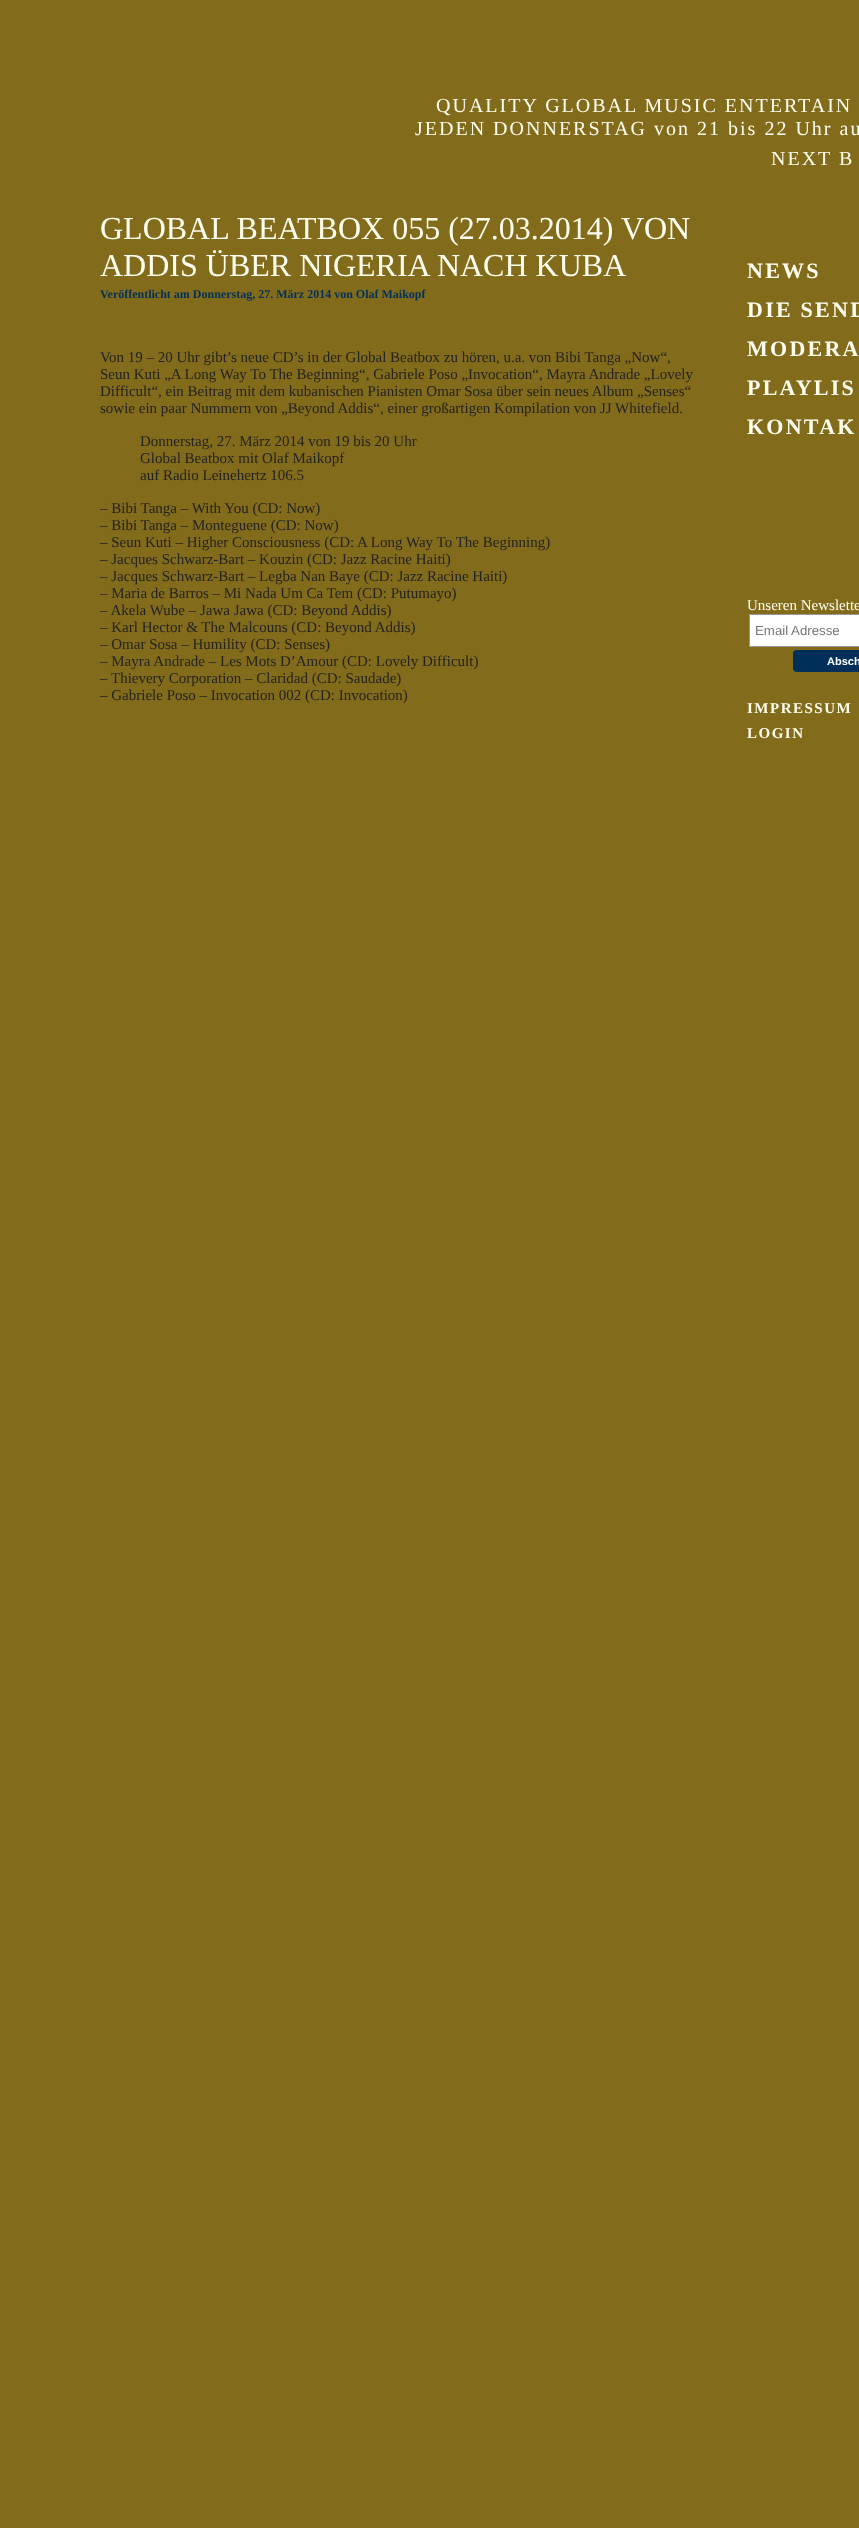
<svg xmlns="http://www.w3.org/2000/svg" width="859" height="2528">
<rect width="100%" height="100%" fill="#836b1c"/>
<text x="436" y="112" style="font-family:Liberation Serif;font-size:20px;letter-spacing:2px;fill:#fffeef">QUALITY GLOBAL MUSIC ENTERTAIN</text>
<text x="415" y="135" style="font-family:Liberation Serif;font-size:20px;letter-spacing:2px;fill:#fffeef">JEDEN DONNERSTAG von 21 bis 22 Uhr au</text>
<text x="771" y="165" style="font-family:Liberation Serif;font-size:20px;letter-spacing:2px;fill:#fffeef">NEXT B</text>
<text x="100" y="239" style="font-family:Liberation Serif;font-size:32px;fill:#fffeef">GLOBAL BEATBOX 055 (27.03.2014) VON</text>
<text x="100" y="276" style="font-family:Liberation Serif;font-size:32px;fill:#fffeef">ADDIS ÜBER NIGERIA NACH KUBA</text>
<text x="100" y="298" style="font-family:Liberation Serif;font-size:12px;font-weight:bold;fill:#00305a">Veröffentlicht am Donnerstag, 27. März 2014 von Olaf Maikopf</text>
<text x="100" y="362" style="font-family:Liberation Serif;font-size:15px;fill:#232323">Von 19 – 20 Uhr gibt’s neue CD’s in der Global Beatbox zu hören, u.a. von Bibi Tanga „Now“,</text>
<text x="100" y="379" style="font-family:Liberation Serif;font-size:15px;fill:#232323">Seun Kuti „A Long Way To The Beginning“, Gabriele Poso „Invocation“, Mayra Andrade „Lovely</text>
<text x="100" y="396" style="font-family:Liberation Serif;font-size:15px;fill:#232323">Difficult“, ein Beitrag mit dem kubanischen Pianisten Omar Sosa über sein neues Album „Senses“</text>
<text x="100" y="413" style="font-family:Liberation Serif;font-size:15px;fill:#232323">sowie ein paar Nummern von „Beyond Addis“, einer großartigen Kompilation von JJ Whitefield.</text>
<text x="140" y="446" style="font-family:Liberation Serif;font-size:15px;fill:#232323">Donnerstag, 27. März 2014 von 19 bis 20 Uhr</text>
<text x="140" y="463" style="font-family:Liberation Serif;font-size:15px;fill:#232323">Global Beatbox mit Olaf Maikopf</text>
<text x="140" y="480" style="font-family:Liberation Serif;font-size:15px;fill:#232323">auf Radio Leinehertz 106.5</text>
<text x="100" y="513" style="font-family:Liberation Serif;font-size:15px;fill:#232323">– Bibi Tanga – With You (CD: Now)</text>
<text x="100" y="530" style="font-family:Liberation Serif;font-size:15px;fill:#232323">– Bibi Tanga – Monteguene (CD: Now)</text>
<text x="100" y="547" style="font-family:Liberation Serif;font-size:15px;fill:#232323">– Seun Kuti – Higher Consciousness (CD: A Long Way To The Beginning)</text>
<text x="100" y="564" style="font-family:Liberation Serif;font-size:15px;fill:#232323">– Jacques Schwarz-Bart – Kouzin (CD: Jazz Racine Haiti)</text>
<text x="100" y="581" style="font-family:Liberation Serif;font-size:15px;fill:#232323">– Jacques Schwarz-Bart – Legba Nan Baye (CD: Jazz Racine Haiti)</text>
<text x="100" y="598" style="font-family:Liberation Serif;font-size:15px;fill:#232323">– Maria de Barros – Mi Nada Um Ca Tem (CD: Putumayo)</text>
<text x="100" y="615" style="font-family:Liberation Serif;font-size:15px;fill:#232323">– Akela Wube – Jawa Jawa (CD: Beyond Addis)</text>
<text x="100" y="632" style="font-family:Liberation Serif;font-size:15px;fill:#232323">– Karl Hector &amp; The Malcouns (CD: Beyond Addis)</text>
<text x="100" y="649" style="font-family:Liberation Serif;font-size:15px;fill:#232323">– Omar Sosa – Humility (CD: Senses)</text>
<text x="100" y="666" style="font-family:Liberation Serif;font-size:15px;fill:#232323">– Mayra Andrade – Les Mots D’Amour (CD: Lovely Difficult)</text>
<text x="100" y="683" style="font-family:Liberation Serif;font-size:15px;fill:#232323">– Thievery Corporation – Claridad (CD: Saudade)</text>
<text x="100" y="700" style="font-family:Liberation Serif;font-size:15px;fill:#232323">– Gabriele Poso – Invocation 002 (CD: Invocation)</text>
<text x="747" y="278" style="font-family:Liberation Serif;font-size:22px;font-weight:bold;letter-spacing:2.25px;fill:#fffeef">NEWS</text>
<text x="747" y="317" style="font-family:Liberation Serif;font-size:22px;font-weight:bold;letter-spacing:2.25px;fill:#fffeef">DIE SEND</text>
<text x="747" y="356" style="font-family:Liberation Serif;font-size:22px;font-weight:bold;letter-spacing:2.25px;fill:#fffeef">MODERA</text>
<text x="747" y="395" style="font-family:Liberation Serif;font-size:22px;font-weight:bold;letter-spacing:2.25px;fill:#fffeef">PLAYLIS</text>
<text x="747" y="434" style="font-family:Liberation Serif;font-size:22px;font-weight:bold;letter-spacing:2.25px;fill:#fffeef">KONTAK</text>
<text x="747" y="610" style="font-family:Liberation Serif;font-size:15px;fill:#fffeef">Unseren Newslette</text>
<rect x="749.5" y="614.5" width="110" height="32" fill="#fff" stroke="#999"/>
<text x="755" y="635" style="font-family:Liberation Sans;font-size:13.25px;fill:#757575">Email Adresse</text>
<rect x="793" y="650" width="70" height="22" rx="4" fill="#00305a"/>
<text x="827" y="665" style="font-family:Liberation Sans;font-size:11px;font-weight:bold;fill:#fff">Absch</text>
<text x="747" y="713" style="font-family:Liberation Serif;font-size:15px;font-weight:bold;letter-spacing:1.5px;fill:#fffeef">IMPRESSUM</text>
<text x="747" y="738" style="font-family:Liberation Serif;font-size:15px;font-weight:bold;letter-spacing:1.5px;fill:#fffeef">LOGIN</text>
</svg>
